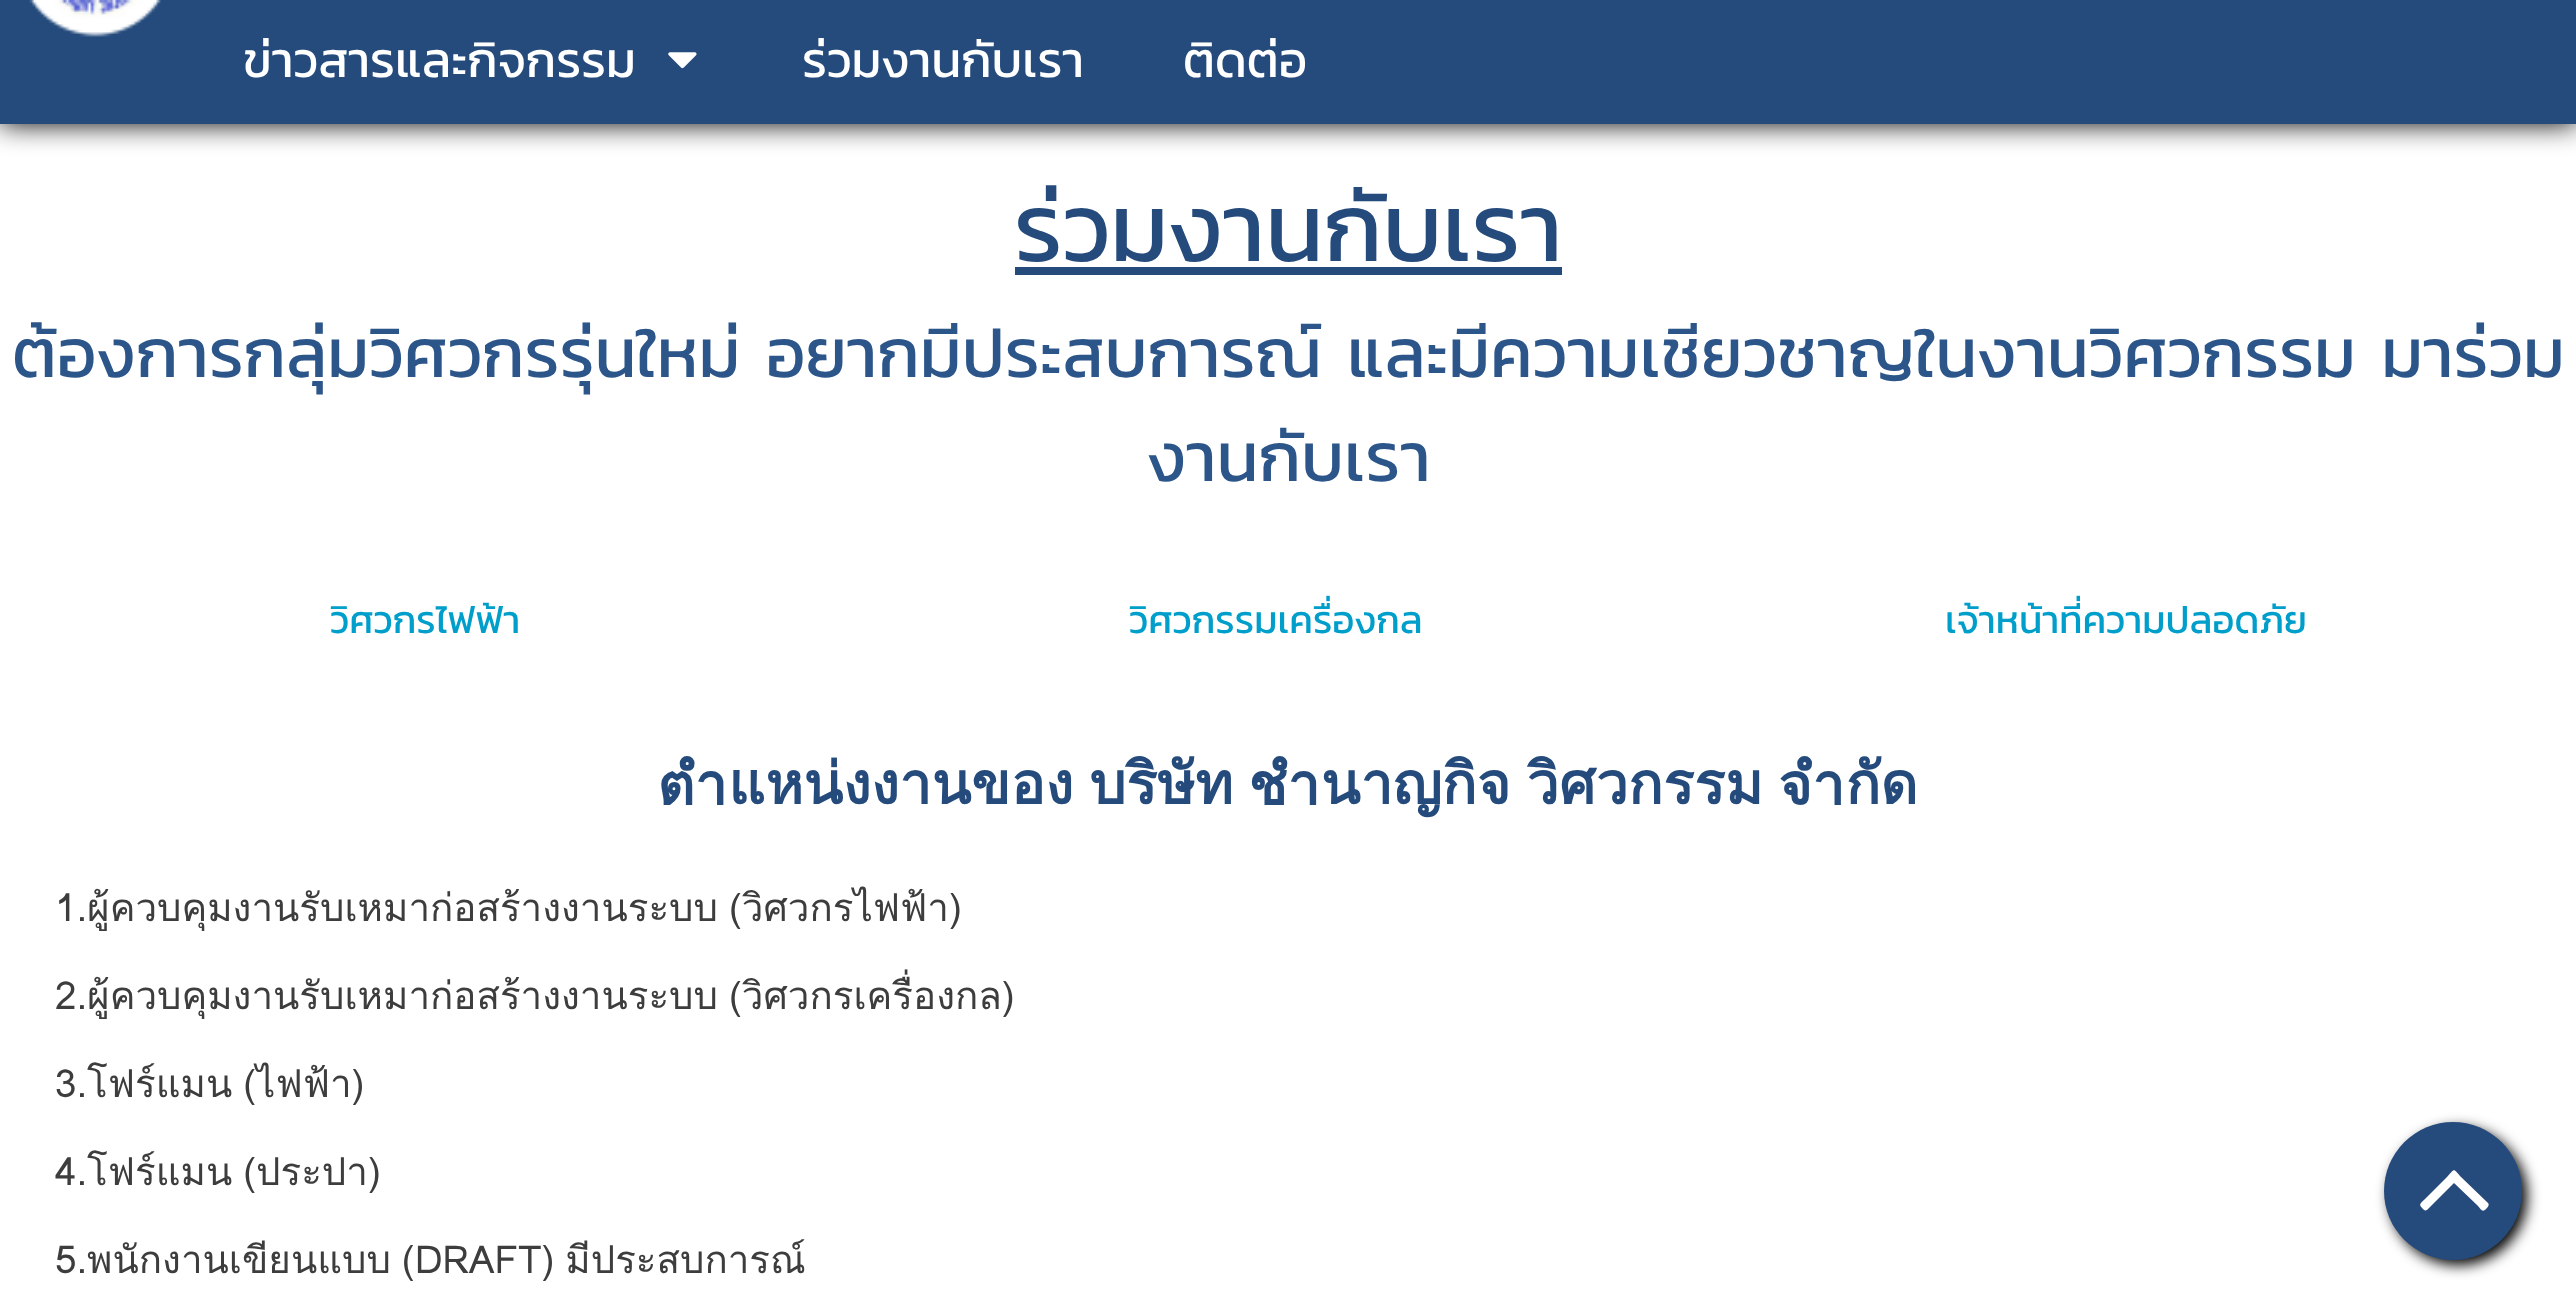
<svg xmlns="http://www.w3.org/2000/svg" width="2576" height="1313">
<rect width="100%" height="100%" fill="#fff"/>
<rect y="-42" width="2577" height="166" fill="#000" filter="blur(14px)"/>
<rect width="2576" height="124" fill="#254b7c"/>
<image x="29" y="0" width="132" height="37" href="media/1.png"/>
<text x="243" y="77" style="font-family:Kanit;font-size:49.5px;fill:#fff">ข่าวสารและกิจกรรม</text>
<image x="668" y="52" width="29" height="17" href="media/2.png"/>
<text x="802" y="77" style="font-family:Kanit;font-size:49.5px;fill:#fff">ร่วมงานกับเรา</text>
<text x="1183" y="77" style="font-family:Kanit;font-size:49.5px;fill:#fff">ติดต่อ</text>
<text x="1014" y="261" style="font-family:Kanit;font-size:96.25px;fill:#254b7c">ร่วมงานกับเรา</text>
<rect x="1015" y="267" width="547" height="8" fill="#254b7c"/>
<text x="12" y="377" word-spacing="-0.5" style="font-family:Kanit;font-size:69.3px;fill:#2c568a">ต้องการกลุ่มวิศวกรรุ่นใหม่ อยากมีประสบการณ์ และมีความเชียวชาญในงานวิศวกรรม มาร่วม</text>
<text x="1147" y="481" style="font-family:Kanit;font-size:69.3px;fill:#2c568a">งานกับเรา</text>
<text x="330" y="633" style="font-family:Kanit;font-size:38.5px;fill:#009eca">วิศวกรไฟฟ้า</text>
<text x="1129" y="633" style="font-family:Kanit;font-size:38.5px;fill:#009eca">วิศวกรรมเครื่องกล</text>
<text x="1945" y="633" style="font-family:Kanit;font-size:38.5px;fill:#009eca">เจ้าหน้าที่ความปลอดภัย</text>
<text x="658" y="804" word-spacing="-3.5" style="font-family:Loma;font-size:57.75px;font-weight:bold;fill:#254b7c">ตำแหน่งงานของ บริษัท ชำนาญกิจ วิศวกรรม จำกัด</text>
<text x="55" y="921" word-spacing="-2" style="font-family:Loma;font-size:38.5px;fill:#3d3d3d">1.ผู้ควบคุมงานรับเหมาก่อสร้างงานระบบ (วิศวกรไฟฟ้า)</text>
<text x="55" y="1009" word-spacing="-2" style="font-family:Loma;font-size:38.5px;fill:#3d3d3d">2.ผู้ควบคุมงานรับเหมาก่อสร้างงานระบบ (วิศวกรเครื่องกล)</text>
<text x="55" y="1097" word-spacing="-2" style="font-family:Loma;font-size:38.5px;fill:#3d3d3d">3.โฟร์แมน (ไฟฟ้า)</text>
<text x="55" y="1185" word-spacing="-2" style="font-family:Loma;font-size:38.5px;fill:#3d3d3d">4.โฟร์แมน (ประปา)</text>
<text x="55" y="1273" word-spacing="-2" style="font-family:Loma;font-size:38.5px;fill:#3d3d3d">5.พนักงานเขียนแบบ (DRAFT) มีประสบการณ์</text>
<rect x="2390" y="1128" width="137" height="137" rx="68.5" fill="#000" filter="blur(7px)"/>
<circle cx="2453" cy="1191" r="69" fill="#254b7c"/>
<path d="M2488 1203c2 2-1 5-2 6c-4 4-5 0-9-4l-23-22l-27 27c-2 1-3 0-4-1c-5-5-3-5 3-11l21-21c8-9 6-9 14 0z" fill="#fff"/>
</svg>
